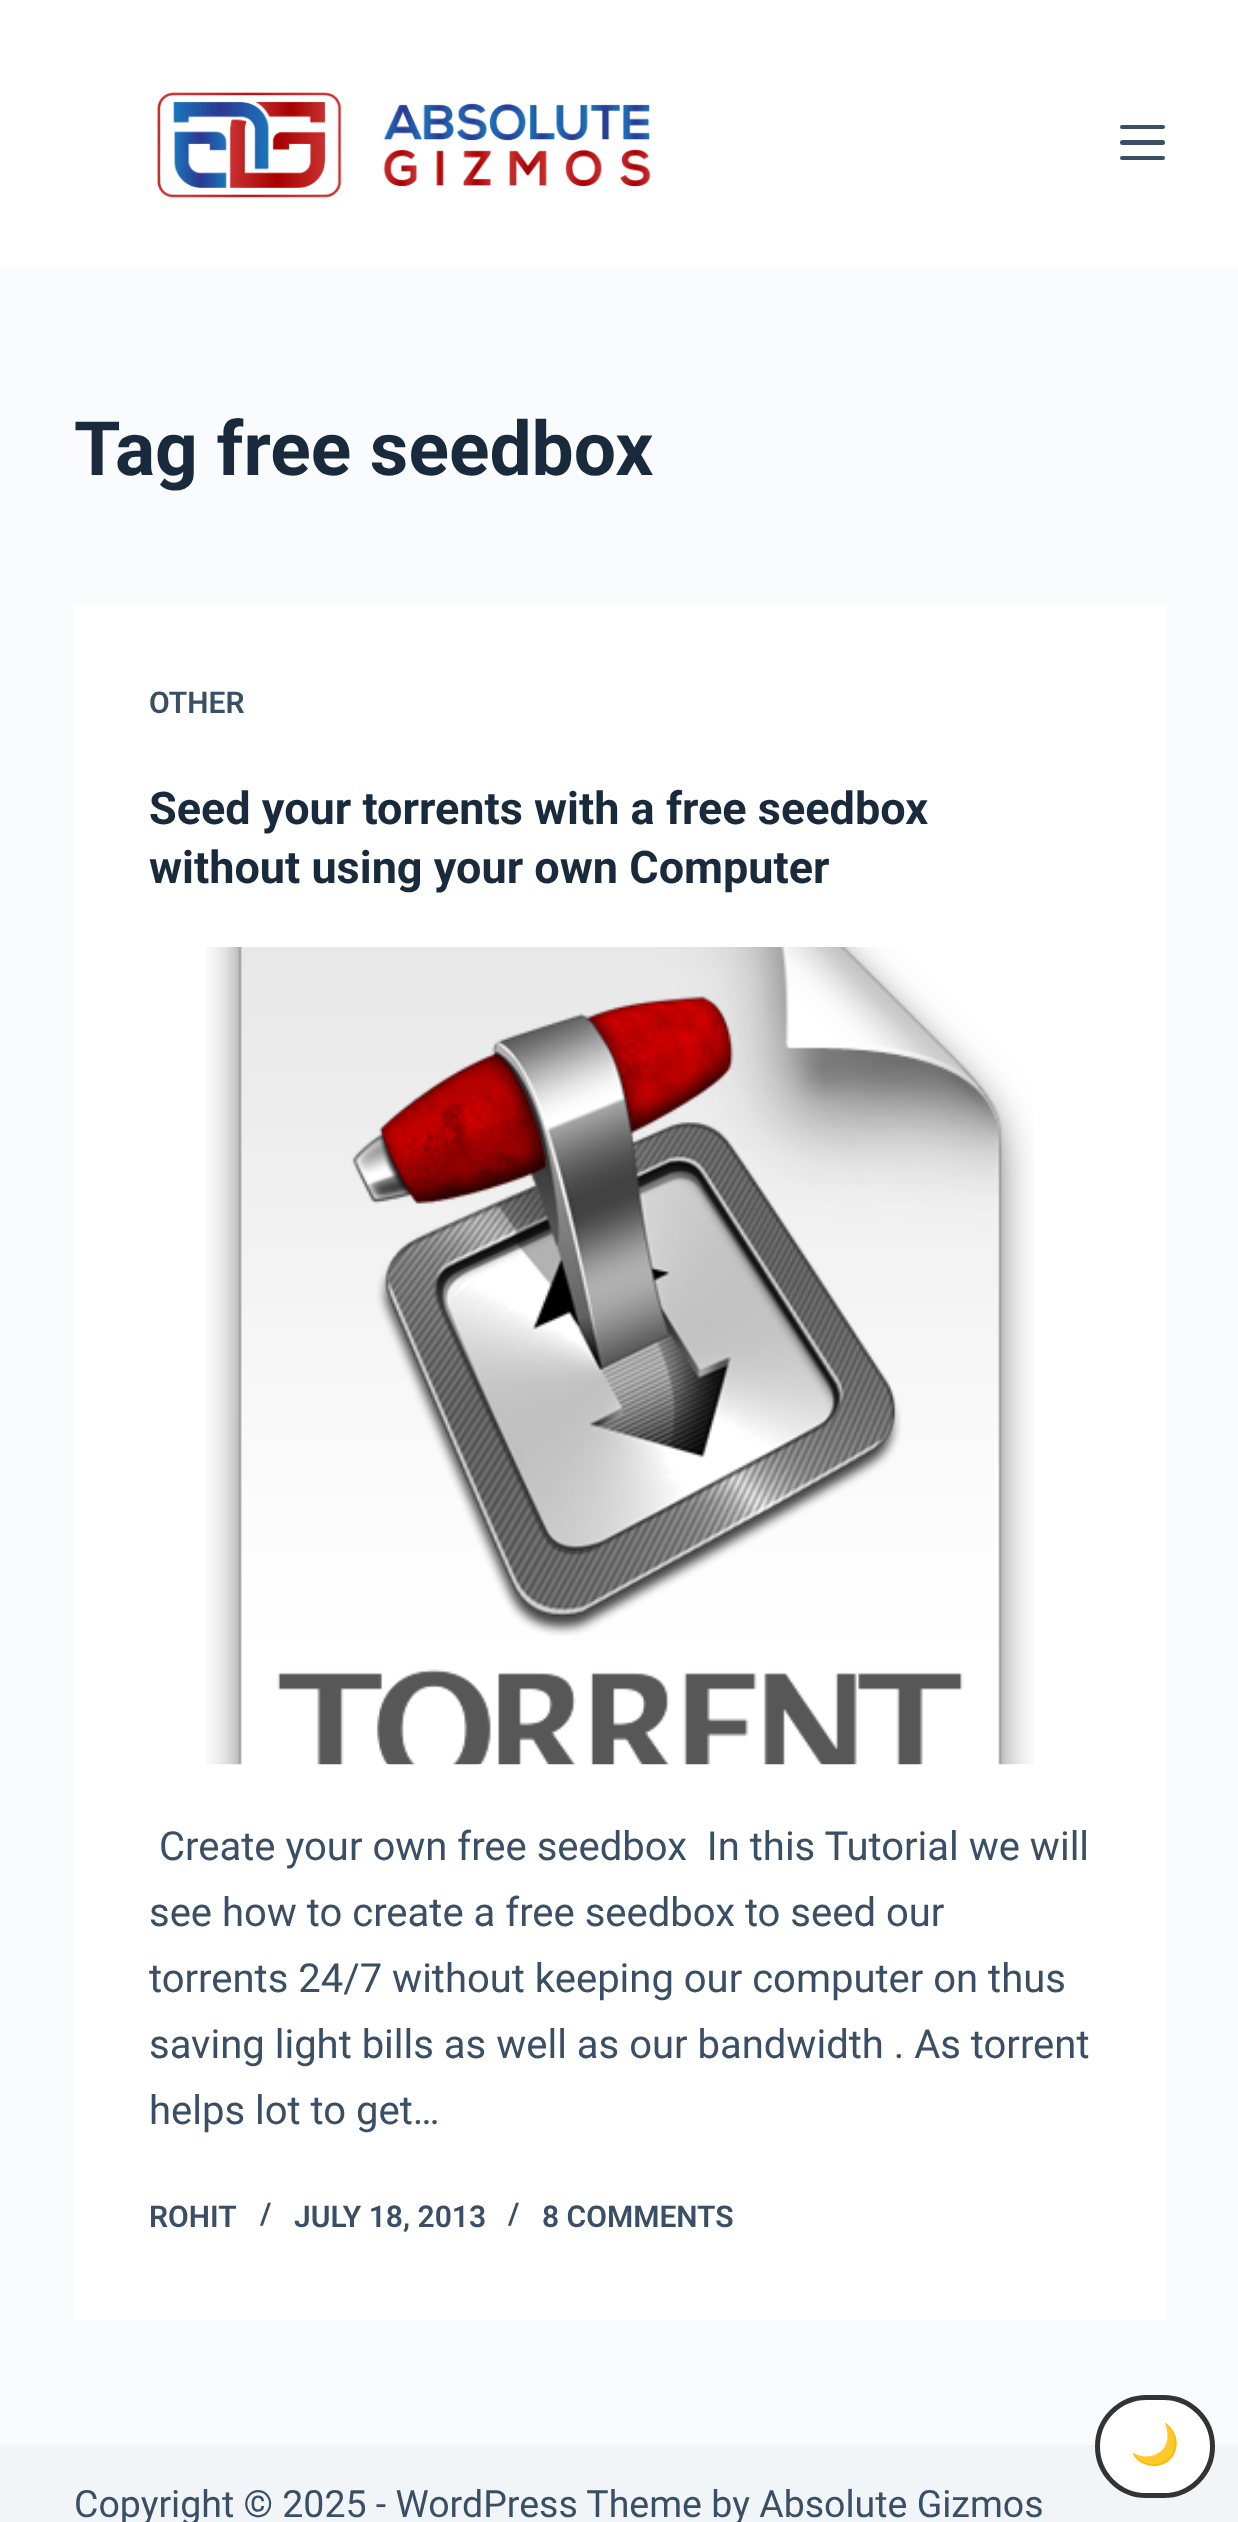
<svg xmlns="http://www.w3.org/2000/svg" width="1238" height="2522">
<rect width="100%" height="100%" fill="#fafbfc"/>
<text x="74" y="475" style="font-family:Roboto;font-size:75px;font-weight:bold;fill:#192a3d">Tag free seedbox</text>
<rect x="75" y="605" width="1090" height="1715" fill="#fff"/>
<text x="149" y="713" style="font-family:Roboto;font-size:30px;font-weight:600;fill:#3a4f66">OTHER</text>
<text x="149" y="824" style="font-family:Roboto;font-size:45px;font-weight:bold;fill:#192a3d">Seed your torrents with a free seedbox</text>
<text x="149" y="883" style="font-family:Roboto;font-size:45px;font-weight:bold;fill:#192a3d">without using your own Computer</text>
<image x="206" y="947" width="828" height="818" href="media/1.png"/>
<text x="159" y="1860" style="font-family:Roboto;font-size:40px;fill:#3a4f66" xml:space="preserve">Create your own free seedbox  In this Tutorial we will</text>
<text x="149" y="1926" style="font-family:Roboto;font-size:40px;fill:#3a4f66">see how to create a free seedbox to seed our</text>
<text x="149" y="1992" style="font-family:Roboto;font-size:40px;fill:#3a4f66">torrents 24/7 without keeping our computer on thus</text>
<text x="149" y="2058" style="font-family:Roboto;font-size:40px;fill:#3a4f66">saving light bills as well as our bandwidth . As torrent</text>
<text x="149" y="2124" style="font-family:Roboto;font-size:40px;fill:#3a4f66">helps lot to get…</text>
<text x="149" y="2227" style="font-family:Roboto;font-size:30px;font-weight:600;fill:#3a4f66">ROHIT</text>
<text x="260" y="2224" style="font-family:Roboto;font-size:30px;font-weight:600;fill:#3a4f66">/</text>
<text x="294" y="2227" style="font-family:Roboto;font-size:30px;font-weight:600;fill:#3a4f66">JULY 18, 2013</text>
<text x="508" y="2224" style="font-family:Roboto;font-size:30px;font-weight:600;fill:#3a4f66">/</text>
<text x="542" y="2227" style="font-family:Roboto;font-size:30px;font-weight:600;fill:#3a4f66">8 COMMENTS</text>
<rect width="1238" height="268" fill="#fff"/>
<image x="157" y="92" width="494" height="106" href="media/2.png"/>
<rect x="1120" y="125" width="45" height="4" rx="2" fill="#3a4f66"/>
<rect x="1120" y="140" width="45" height="5" rx="2.5" fill="#3a4f66"/>
<rect x="1120" y="156" width="45" height="4" rx="2" fill="#3a4f66"/>
<rect y="2445" width="1238" height="77" fill="#f2f5f7"/>
<rect x="1097.5" y="2397.5" width="115" height="98" rx="49" fill="#fff" stroke="#333" stroke-width="5"/>
<text x="1130" y="2458" style="font-family:Noto Color Emoji;font-size:40px;fill:#333">🌙</text>
<text x="74" y="2517" style="font-family:Roboto;font-size:37.5px;fill:#3a4f66">Copyright © 2025 - WordPress Theme by Absolute Gizmos</text>
</svg>
